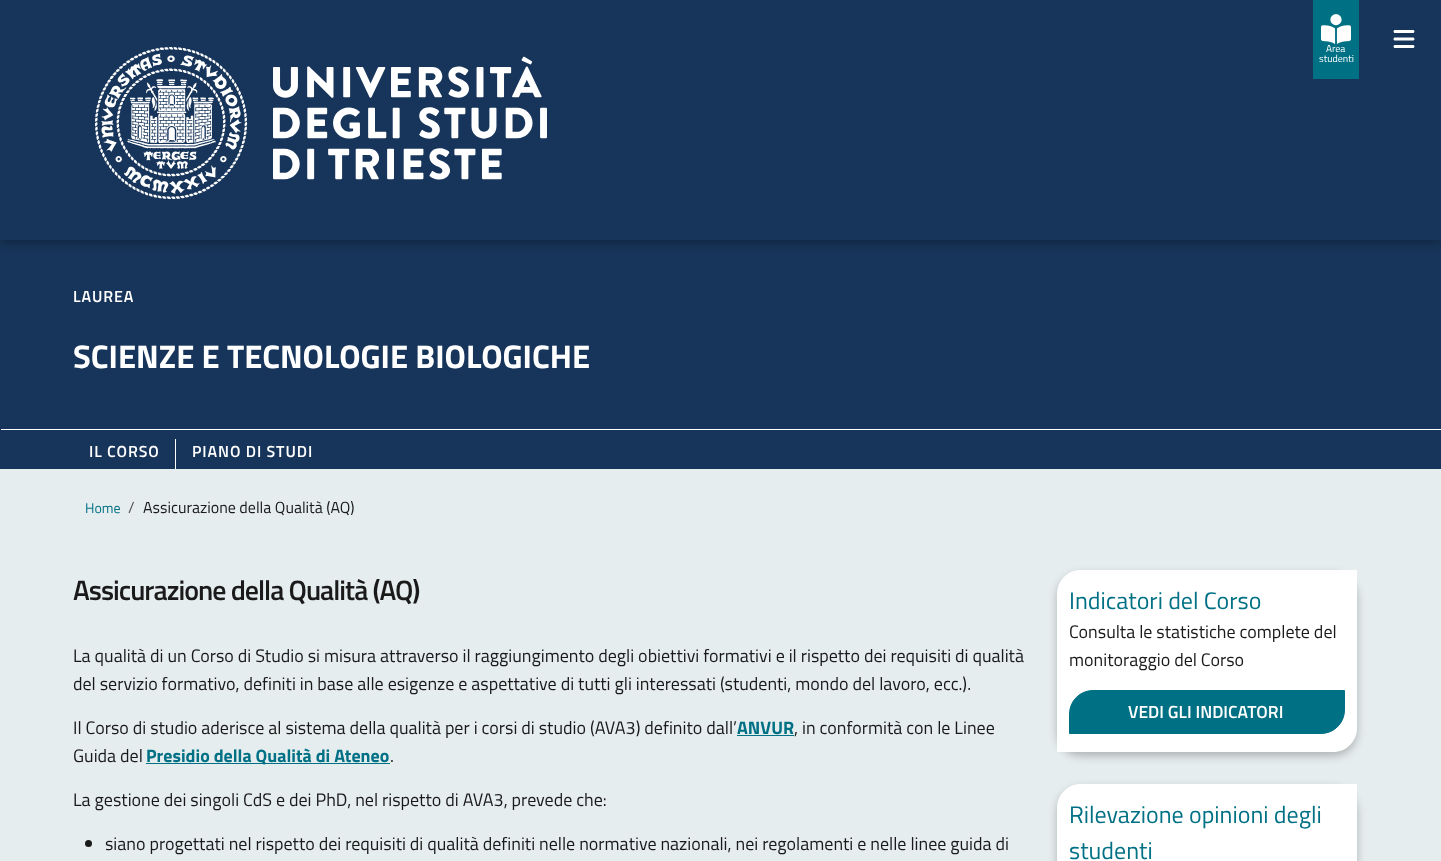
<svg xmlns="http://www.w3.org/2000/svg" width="1441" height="861">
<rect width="100%" height="100%" fill="#e6edef"/>
<rect y="240" width="1441" height="229" fill="#17355a"/>
<rect y="4" width="1441" height="240" fill="#0000003d" filter="blur(4px)"/>
<rect width="1441" height="240" fill="#17355a"/>
<image x="95" y="47" width="452" height="152" href="media/1.png"/>
<image x="1393" y="30" width="22" height="18" href="media/2.png"/>
<rect x="1313" width="46" height="79" fill="#007185"/>
<image x="1321" y="14" width="30" height="30" href="media/3.png"/>
<text x="1326" y="52" style="font-family:Titillium Web;font-size:10px;fill:#fff">Area</text>
<text x="1319" y="62" style="font-family:Titillium Web;font-size:10px;fill:#fff">studenti</text>
<text x="73" y="302" style="font-family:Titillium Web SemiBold;font-size:16px;font-weight:600;letter-spacing:0.9px;fill:#fff">LAUREA</text>
<text x="73" y="368" style="font-family:Titillium Web;font-size:32.75px;font-weight:bold;fill:#fff">SCIENZE E TECNOLOGIE BIOLOGICHE</text>
<rect x="1" y="429" width="1440" height="1" fill="#fff"/>
<rect x="175" y="439" width="1" height="30" fill="#fff"/>
<text x="89" y="457" style="font-family:Titillium Web SemiBold;font-size:16px;font-weight:600;letter-spacing:0.9px;fill:#fff">IL CORSO</text>
<text x="192" y="457" style="font-family:Titillium Web SemiBold;font-size:16px;font-weight:600;letter-spacing:0.9px;fill:#fff">PIANO DI STUDI</text>
<text x="85" y="513" style="font-family:Titillium Web;font-size:14px;fill:#007185">Home</text>
<text x="128" y="513" style="font-family:Titillium Web;font-size:16px;fill:#525252">/</text>
<text x="143" y="513" style="font-family:Titillium Web;font-size:16px;fill:#1a1a1a">Assicurazione della Qualità (AQ)</text>
<text x="73" y="600" style="font-family:Titillium Web SemiBold;font-size:28px;font-weight:600;letter-spacing:-1px;fill:#1a1a1a">Assicurazione della Qualità (AQ)</text>
<text x="73" y="662" style="font-family:Titillium Web;font-size:18px;fill:#1a1a1a">La qualità di un Corso di Studio si misura attraverso il raggiungimento degli obiettivi formativi e il rispetto dei requisiti di qualità</text>
<text x="73" y="690" style="font-family:Titillium Web;font-size:18px;fill:#1a1a1a">del servizio formativo, definiti in base alle esigenze e aspettative di tutti gli interessati (studenti, mondo del lavoro, ecc.).</text>
<text x="73" y="734" style="font-family:Titillium Web;font-size:18px;fill:#1a1a1a">Il Corso di studio aderisce al sistema della qualità per i corsi di studio (AVA3) definito dall’</text>
<text x="737" y="734" style="font-family:Titillium Web;font-size:18px;font-weight:bold;fill:#007185">ANVUR</text>
<rect x="737" y="735" width="57" height="1" fill="#007185"/>
<text x="794" y="734" style="font-family:Titillium Web;font-size:18px;fill:#1a1a1a">, in conformità con le Linee</text>
<text x="73" y="762" style="font-family:Titillium Web;font-size:18px;fill:#1a1a1a">Guida del</text>
<rect x="146" y="763" width="244" height="1" fill="#007185"/>
<text x="146" y="762" style="font-family:Titillium Web;font-size:18px;font-weight:bold;fill:#007185">Presidio della Qualità di Ateneo</text>
<text x="390" y="762" style="font-family:Titillium Web;font-size:18px;fill:#1a1a1a">.</text>
<text x="73" y="806" style="font-family:Titillium Web;font-size:18px;fill:#1a1a1a">La gestione dei singoli CdS e dei PhD, nel rispetto di AVA3, prevede che:</text>
<circle cx="88.5" cy="843.5" r="3.5" fill="#1a1a1a"/>
<text x="105" y="850" style="font-family:Titillium Web;font-size:18px;fill:#1a1a1a">siano progettati nel rispetto dei requisiti di qualità definiti nelle normative nazionali, nei regolamenti e nelle linee guida di</text>
<rect x="1057" y="574" width="300" height="182" rx="24" fill="#0000003d" filter="blur(4px)"/>
<path d="M1081 570h276v158c0 13.5-10.5 24-24 24h-276v-158c0-13.5 10.5-24 24-24z" fill="#fff"/>
<text x="1069" y="609" style="font-family:Titillium Web;font-size:24px;fill:#007185">Indicatori del Corso</text>
<text x="1069" y="638" style="font-family:Titillium Web;font-size:18px;fill:#1a1a1a">Consulta le statistiche complete del</text>
<text x="1069" y="666" style="font-family:Titillium Web;font-size:18px;fill:#1a1a1a">monitoraggio del Corso</text>
<path d="M1093 690.5h251.5v19.5c0 13-10.5 23.5-23.5 23.5h-251.5v-19.5c0-13 10.5-23.5 23.5-23.5z" fill="#007185" stroke="#007185"/>
<text x="1128" y="718" style="font-family:Titillium Web SemiBold;font-size:17.5px;font-weight:600;fill:#fff">VEDI GLI INDICATORI</text>
<rect x="1057" y="788" width="300" height="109" rx="24" fill="#0000003d" filter="blur(4px)"/>
<path d="M1081 784h276v77c0 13.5-10.5 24-24 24h-276v-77c0-13.5 10.5-24 24-24z" fill="#fff"/>
<text x="1069" y="823" style="font-family:Titillium Web;font-size:24px;fill:#007185">Rilevazione opinioni degli</text>
<text x="1069" y="859" style="font-family:Titillium Web;font-size:24px;fill:#007185">studenti</text>
</svg>
